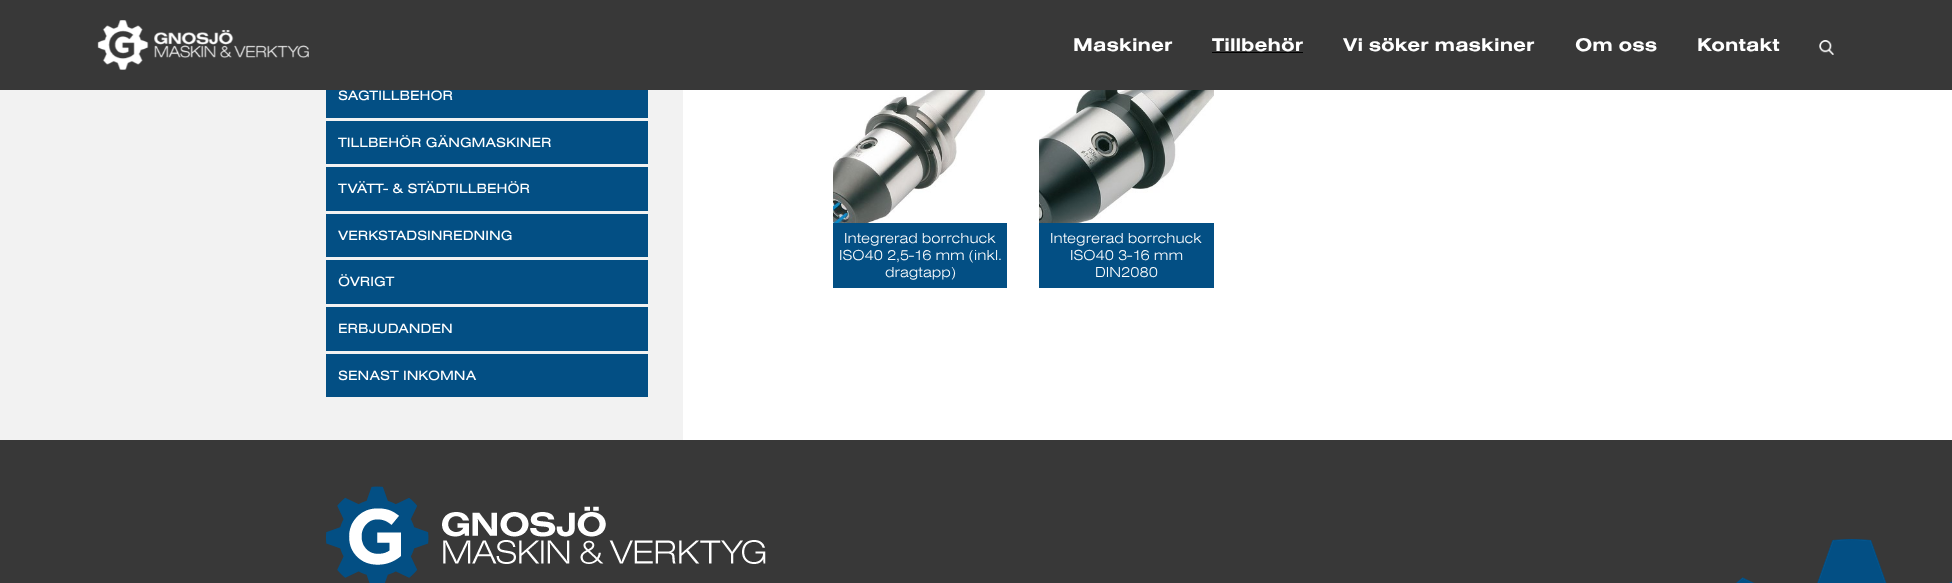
<svg xmlns="http://www.w3.org/2000/svg" width="1952" height="583">
<rect width="100%" height="100%" fill="#f2f2f2"/>
<rect x="326" y="90" width="322" height="28" fill="#034f84"/>
<text x="338" y="100" style="font-family:'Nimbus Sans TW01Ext';font-size:14px;fill:#fff">SÅGTILLBEHÖR</text>
<rect width="1952" height="90" fill="#383838"/>
<image x="97" y="20" width="212" height="50" href="media/1.png"/>
<text x="1073" y="51" style="font-family:'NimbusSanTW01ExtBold';font-size:19px;font-weight:bold;fill:#fff">Maskiner</text>
<text x="1212" y="51" style="font-family:'NimbusSanTW01ExtBold';font-size:19px;font-weight:bold;fill:#fff">Tillbehör</text>
<rect x="1212" y="52" width="91" height="1" fill="#000"/>
<text x="1343" y="51" style="font-family:'NimbusSanTW01ExtBold';font-size:19px;font-weight:bold;fill:#fff">Vi söker maskiner</text>
<text x="1575" y="51" style="font-family:'NimbusSanTW01ExtBold';font-size:19px;font-weight:bold;fill:#fff">Om oss</text>
<text x="1697" y="51" style="font-family:'NimbusSanTW01ExtBold';font-size:19px;font-weight:bold;fill:#fff">Kontakt</text>
<image x="1819" y="40" width="15" height="15" href="media/2.png"/>
<rect x="326" y="121" width="322" height="43" fill="#034f84"/>
<text x="338" y="147" style="font-family:'Nimbus Sans TW01Ext';font-size:14px;fill:#fff">TILLBEHÖR GÄNGMASKINER</text>
<rect x="326" y="167" width="322" height="44" fill="#034f84"/>
<text x="338" y="193" style="font-family:'Nimbus Sans TW01Ext';font-size:14px;fill:#fff">TVÄTT- &amp; STÄDTILLBEHÖR</text>
<rect x="326" y="214" width="322" height="43" fill="#034f84"/>
<text x="338" y="240" style="font-family:'Nimbus Sans TW01Ext';font-size:14px;fill:#fff">VERKSTADSINREDNING</text>
<rect x="326" y="260" width="322" height="44" fill="#034f84"/>
<text x="338" y="286" style="font-family:'Nimbus Sans TW01Ext';font-size:14px;fill:#fff">ÖVRIGT</text>
<rect x="326" y="307" width="322" height="44" fill="#034f84"/>
<text x="338" y="333" style="font-family:'Nimbus Sans TW01Ext';font-size:14px;fill:#fff">ERBJUDANDEN</text>
<rect x="326" y="354" width="322" height="43" fill="#034f84"/>
<text x="338" y="380" style="font-family:'Nimbus Sans TW01Ext';font-size:14px;fill:#fff">SENAST INKOMNA</text>
<rect x="683" y="90" width="1269" height="350" fill="#fff"/>
<image x="833" y="90" width="174" height="133" href="media/3.png"/>
<rect x="833" y="223" width="174" height="65" fill="#034f84"/>
<text x="844" y="243" style="font-family:'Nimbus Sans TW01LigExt';font-size:15px;font-weight:300;fill:#fff">Integrerad borrchuck</text>
<text x="839" y="260" style="font-family:'Nimbus Sans TW01LigExt';font-size:15px;font-weight:300;fill:#fff">ISO40 2,5-16 mm (inkl.</text>
<text x="885" y="277" style="font-family:'Nimbus Sans TW01LigExt';font-size:15px;font-weight:300;fill:#fff">dragtapp)</text>
<image x="1039" y="90" width="175" height="133" href="media/4.png"/>
<rect x="1039" y="223" width="175" height="65" fill="#034f84"/>
<text x="1050" y="243" style="font-family:'Nimbus Sans TW01LigExt';font-size:15px;font-weight:300;fill:#fff">Integrerad borrchuck</text>
<text x="1070" y="260" style="font-family:'Nimbus Sans TW01LigExt';font-size:15px;font-weight:300;fill:#fff">ISO40 3-16 mm</text>
<text x="1095" y="277" style="font-family:'Nimbus Sans TW01LigExt';font-size:15px;font-weight:300;fill:#fff">DIN2080</text>
<rect y="440" width="1952" height="143" fill="#383838"/>
<image x="326" y="486" width="440" height="97" href="media/5.png"/>
<image x="1736" y="539" width="216" height="44" href="media/6.png"/>
</svg>
